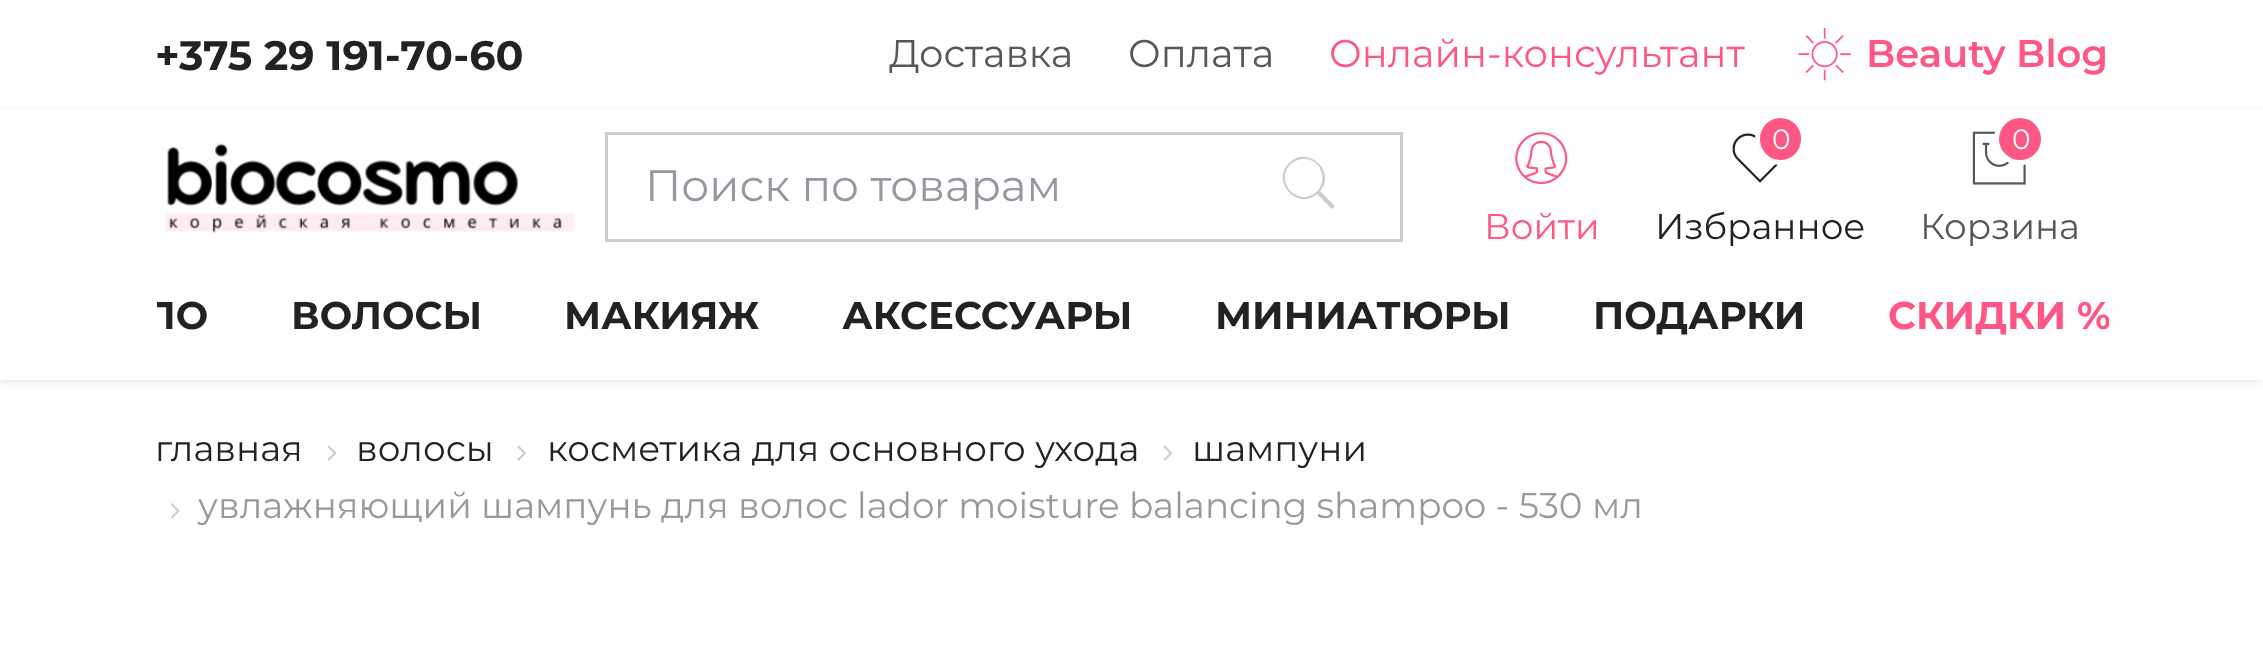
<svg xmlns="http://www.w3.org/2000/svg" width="2263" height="658">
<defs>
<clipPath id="clip1"><rect x="157" y="256" width="52" height="124"/></clipPath>
<clipPath id="clip2"><rect x="1889" y="256" width="220" height="124"/></clipPath>
</defs>
<rect width="100%" height="100%" fill="#fff"/>
<text x="155" y="70" style="font-family:Montserrat;font-size:41.25px;font-weight:bold;fill:#222">+375 29 191-70-60</text>
<text x="889" y="67" style="font-family:Montserrat;font-size:38.5px;fill:#575757">Доставка</text>
<text x="1128" y="67" style="font-family:Montserrat;font-size:38.5px;fill:#575757">Оплата</text>
<text x="1329" y="67" style="font-family:Montserrat;font-size:38.5px;fill:#fe5783">Онлайн-консультант</text>
<image x="1798" y="28" width="53" height="53" href="media/1.png"/>
<text x="1866" y="67" style="font-family:Montserrat;font-size:38.5px;font-weight:600;fill:#fe5783">Beauty Blog</text>
<rect y="113" width="2263" height="269" fill="#0000001a" filter="blur(4px)"/>
<rect y="110" width="2263" height="270" fill="#fff"/>
<image x="165" y="143" width="409" height="90" href="media/2.png"/>
<rect x="605" y="132" width="798" height="3" fill="#ccc"/>
<rect x="605" y="239" width="613" height="3" fill="#ccc"/>
<rect x="605" y="132" width="3" height="110" fill="#ccc"/>
<text x="645" y="201" style="font-family:Montserrat;font-size:44px;fill:#9697a1">Поиск по товарам</text>
<rect x="1400" y="132" width="3" height="110" fill="#ccc"/>
<rect x="1218" y="239" width="185" height="3" fill="#ccc"/>
<path d="M1335 206l-15-15c17-19-12-47-31-28c-19 19 9 48 28 31l15 15zm-50-28c0-23 33-26 37-4c1 5 0 9-2 13c-3 6-9 9-15 10c-11 0-20-9-20-19z" fill="#ccc"/>
<image x="1515" y="132" width="53" height="52" href="media/3.png"/>
<text x="1484" y="239" style="font-family:Montserrat;font-size:35.75px;fill:#fe5783">Войти</text>
<image x="1732" y="133" width="47" height="50" href="media/4.png"/>
<circle cx="1781" cy="139" r="23" fill="none" stroke="#fff" stroke-width="6"/>
<rect x="1760" y="118" width="41" height="42" rx="20.5" fill="#fe5783"/>
<text x="1772" y="149" style="font-family:Montserrat;font-size:28px;fill:#fff">0</text>
<text x="1655" y="239" style="font-family:Montserrat;font-size:35.75px;fill:#222">Избранное</text>
<image x="1972" y="131" width="54" height="54" href="media/5.png"/>
<circle cx="2020" cy="139" r="23" fill="none" stroke="#fff" stroke-width="6"/>
<circle cx="2020" cy="139" r="21" fill="#fe5783"/>
<text x="2012" y="149" style="font-family:Montserrat;font-size:28px;fill:#fff">0</text>
<text x="1920" y="239" style="font-family:Montserrat;font-size:35.75px;fill:#575757">Корзина</text>
<g clip-path="url(#clip1)">
<text x="145" y="329" style="font-family:Montserrat;font-size:38.5px;font-weight:bold;fill:#222">ЛО</text>
</g>
<text x="291" y="329" style="font-family:Montserrat;font-size:38.5px;font-weight:bold;fill:#222">ВОЛОСЫ</text>
<text x="564" y="329" style="font-family:Montserrat;font-size:38.5px;font-weight:bold;fill:#222">МАКИЯЖ</text>
<text x="842" y="329" style="font-family:Montserrat;font-size:38.5px;font-weight:bold;fill:#222">АКСЕССУАРЫ</text>
<text x="1215" y="329" style="font-family:Montserrat;font-size:38.5px;font-weight:bold;fill:#222">МИНИАТЮРЫ</text>
<text x="1593" y="329" style="font-family:Montserrat;font-size:38.5px;font-weight:bold;fill:#222">ПОДАРКИ</text>
<g clip-path="url(#clip2)">
<text x="1888" y="329" style="font-family:Montserrat;font-size:38.5px;font-weight:bold;fill:#fe5783">СКИДКИ %</text>
</g>
<text x="155" y="461" style="font-family:Montserrat;font-size:35.75px;fill:#222">главная</text>
<image x="327" y="445" width="10" height="16" href="media/6.png"/>
<text x="356" y="461" style="font-family:Montserrat;font-size:35.75px;fill:#222">волосы</text>
<image x="517" y="445" width="9" height="16" href="media/7.png"/>
<text x="547" y="461" style="font-family:Montserrat;font-size:35.75px;fill:#222">косметика для основного ухода</text>
<image x="1163" y="445" width="10" height="16" href="media/6.png"/>
<text x="1192" y="461" style="font-family:Montserrat;font-size:35.75px;fill:#222">шампуни</text>
<image x="170" y="503" width="10" height="16" href="media/8.png"/>
<text x="198" y="518" style="font-family:Montserrat;font-size:35.75px;fill:#999">увлажняющий шампунь для волос lador moisture balancing shampoo - 530 мл</text>
</svg>
